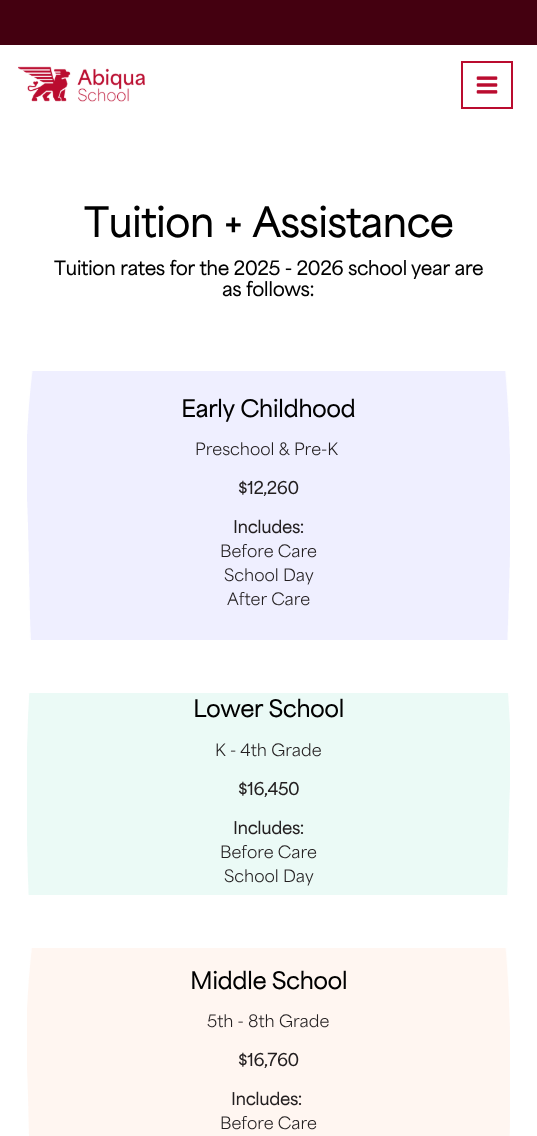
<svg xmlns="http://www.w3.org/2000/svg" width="537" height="1136">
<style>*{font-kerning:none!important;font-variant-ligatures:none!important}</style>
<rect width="100%" height="100%" fill="#fff"/>
<rect width="537" height="45" fill="#440010"/>
<image x="18" y="66" width="127" height="36" href="media/1.png"/>
<rect x="462" y="62" width="50" height="46" fill="none" stroke="#ba0c2f" stroke-width="2"/>
<image x="476" y="76" width="22" height="18" href="media/2.png"/>
<text x="84" y="237" style="font-family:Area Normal;font-size:38px;font-weight:bold;fill:#000">Tuition + Assistance</text>
<text x="54" y="275" style="font-family:Area Normal;font-size:18px;font-weight:bold;fill:#000">Tuition rates for the 2025 - 2026 school</text>
<text x="411" y="275" style="font-family:Area Normal;font-size:18px;font-weight:bold;fill:#000">year are</text>
<text x="222" y="296" style="font-family:Area Normal;font-size:18px;font-weight:bold;fill:#000">as follows:</text>
<image x="27" y="371" width="483" height="269" href="media/3.png"/>
<text x="181" y="417" style="font-family:Area Normal;font-size:22px;font-weight:bold;fill:#000">Early Childhood</text>
<text x="195" y="455" style="font-family:Area Normal;font-size:16px;fill:#231f20">Preschool &amp; Pre-K</text>
<text x="238" y="494" style="font-family:Area Normal;font-size:16px;font-weight:bold;fill:#231f20">$12,260</text>
<text x="233" y="533" style="font-family:Area Normal;font-size:16px;font-weight:bold;fill:#231f20">Includes:</text>
<text x="220" y="557" style="font-family:Area Normal;font-size:16px;fill:#231f20">Before Care</text>
<text x="224" y="581" style="font-family:Area Normal;font-size:16px;fill:#231f20">School Day</text>
<text x="227" y="605" style="font-family:Area Normal;font-size:16px;fill:#231f20">After Care</text>
<image x="27" y="693" width="483" height="202" href="media/4.png"/>
<text x="193" y="717" style="font-family:Area Normal;font-size:22px;font-weight:bold;fill:#000">Lower School</text>
<text x="215" y="756" style="font-family:Area Normal;font-size:16px;fill:#231f20">K - 4th Grade</text>
<text x="238" y="795" style="font-family:Area Normal;font-size:16px;font-weight:bold;fill:#231f20">$16,450</text>
<text x="233" y="834" style="font-family:Area Normal;font-size:16px;font-weight:bold;fill:#231f20">Includes:</text>
<text x="220" y="858" style="font-family:Area Normal;font-size:16px;fill:#231f20">Before Care</text>
<text x="224" y="882" style="font-family:Area Normal;font-size:16px;fill:#231f20">School Day</text>
<image x="27" y="948" width="483" height="188" href="media/5.png"/>
<text x="190" y="989" style="font-family:Area Normal;font-size:22px;font-weight:bold;fill:#000">Middle School</text>
<text x="207" y="1027" style="font-family:Area Normal;font-size:16px;fill:#231f20">5th - 8th Grade</text>
<text x="238" y="1066" style="font-family:Area Normal;font-size:16px;font-weight:bold;fill:#231f20">$16,760</text>
<text x="231" y="1105" style="font-family:Area Normal;font-size:16px;font-weight:bold;fill:#231f20">Includes:</text>
<text x="220" y="1129" style="font-family:Area Normal;font-size:16px;fill:#231f20">Before Care</text>
</svg>
